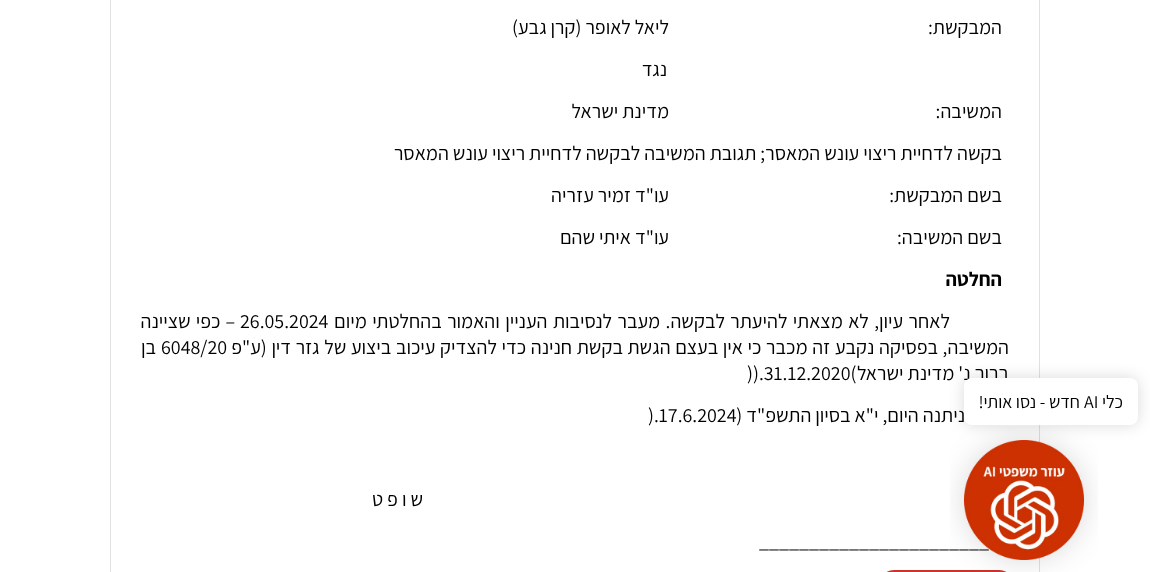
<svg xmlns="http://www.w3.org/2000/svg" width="1150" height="572">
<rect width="100%" height="100%" fill="#fff"/>
<rect x="110.5" y="-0.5" width="929" height="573" fill="none" stroke="#e1e1e1"/>
<rect x="964" y="378" width="174" height="47" rx="8" fill="#00000026" filter="blur(7.5px)"/>
<text x="1009" y="380" style="font-family:Assistant;font-size:20px;direction:rtl;fill:#000">ברוך נ' מדינת ישראל</text>
<rect x="964" y="378" width="174" height="47" rx="8" fill="#fff"/>
<text x="1123" y="408" style="font-family:Assistant;font-size:18px;direction:rtl;fill:#000">כלי</text>
<text x="1084" y="408" style="font-family:Assistant;font-size:18px;fill:#000">AI</text>
<text x="1080" y="408" style="font-family:Assistant;font-size:18px;direction:rtl;fill:#000">חדש - נסו אותי!</text>
<text x="759" y="548" style="font-family:Assistant;font-size:20px;fill:#000">_______________________</text>
<rect x="884" y="570" width="125" height="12" rx="10" fill="#cd332c"/>
<image x="950" y="426" width="148" height="146" href="media/1.png"/>
<text x="1002" y="34" style="font-family:Assistant;font-size:20px;direction:rtl;fill:#000">המבקשת:</text>
<text x="669" y="34" style="font-family:Assistant;font-size:20px;direction:rtl;fill:#000">ליאל לאופר (קרן גבע)</text>
<text x="667" y="76" style="font-family:Assistant;font-size:20px;direction:rtl;fill:#000">נגד</text>
<text x="1002" y="118" style="font-family:Assistant;font-size:20px;direction:rtl;fill:#000">המשיבה:</text>
<text x="669" y="118" style="font-family:Assistant;font-size:20px;direction:rtl;fill:#000">מדינת ישראל</text>
<text x="1002" y="160" style="font-family:Assistant;font-size:20px;direction:rtl;fill:#000">בקשה לדחיית ריצוי עונש המאסר; תגובת המשיבה לבקשה לדחיית ריצוי עונש המאסר</text>
<text x="1002" y="202" style="font-family:Assistant;font-size:20px;direction:rtl;fill:#000">בשם המבקשת:</text>
<text x="669" y="202" style="font-family:Assistant;font-size:20px;direction:rtl;fill:#000">עו"ד זמיר עזריה</text>
<text x="1002" y="244" style="font-family:Assistant;font-size:20px;direction:rtl;fill:#000">בשם המשיבה:</text>
<text x="669" y="244" style="font-family:Assistant;font-size:20px;direction:rtl;fill:#000">עו"ד איתי שהם</text>
<text x="1002" y="286" style="font-family:Assistant;font-size:20px;font-weight:bold;direction:rtl;fill:#000">החלטה</text>
<text x="950" y="328" word-spacing="1.4" style="font-family:Assistant;font-size:20px;direction:rtl;fill:#000">לאחר עיון, לא מצאתי להיעתר לבקשה. מעבר לנסיבות העניין והאמור בהחלטתי מיום</text>
<text x="240" y="328" style="font-family:Assistant;font-size:20px;fill:#000">26.05.2024</text>
<text x="235" y="328" word-spacing="1" style="font-family:Assistant;font-size:20px;direction:rtl;fill:#000">– כפי שציינה</text>
<text x="1009" y="354" word-spacing="0.6" style="font-family:Assistant;font-size:20px;direction:rtl;fill:#000">המשיבה, בפסיקה נקבע זה מכבר כי אין בעצם הגשת בקשת חנינה כדי להצדיק עיכוב ביצוע של גזר דין (ע"פ</text>
<text x="161" y="354" style="font-family:Assistant;font-size:20px;fill:#000">6048/20</text>
<text x="156" y="354" style="font-family:Assistant;font-size:20px;direction:rtl;fill:#000">בן</text>
<text x="747" y="380" style="font-family:Assistant;font-size:20px;fill:#000">)).31.12.2020(</text>
<text x="965" y="422" style="font-family:Assistant;font-size:20px;direction:rtl;fill:#000">ניתנה היום, י"א בסיון התשפ"ד (</text>
<text x="648" y="422" style="font-family:Assistant;font-size:20px;fill:#000">).17.6.2024</text>
<text x="423" y="506" style="font-family:Assistant;font-size:20px;direction:rtl;fill:#000">ש ו פ ט</text>
</svg>
